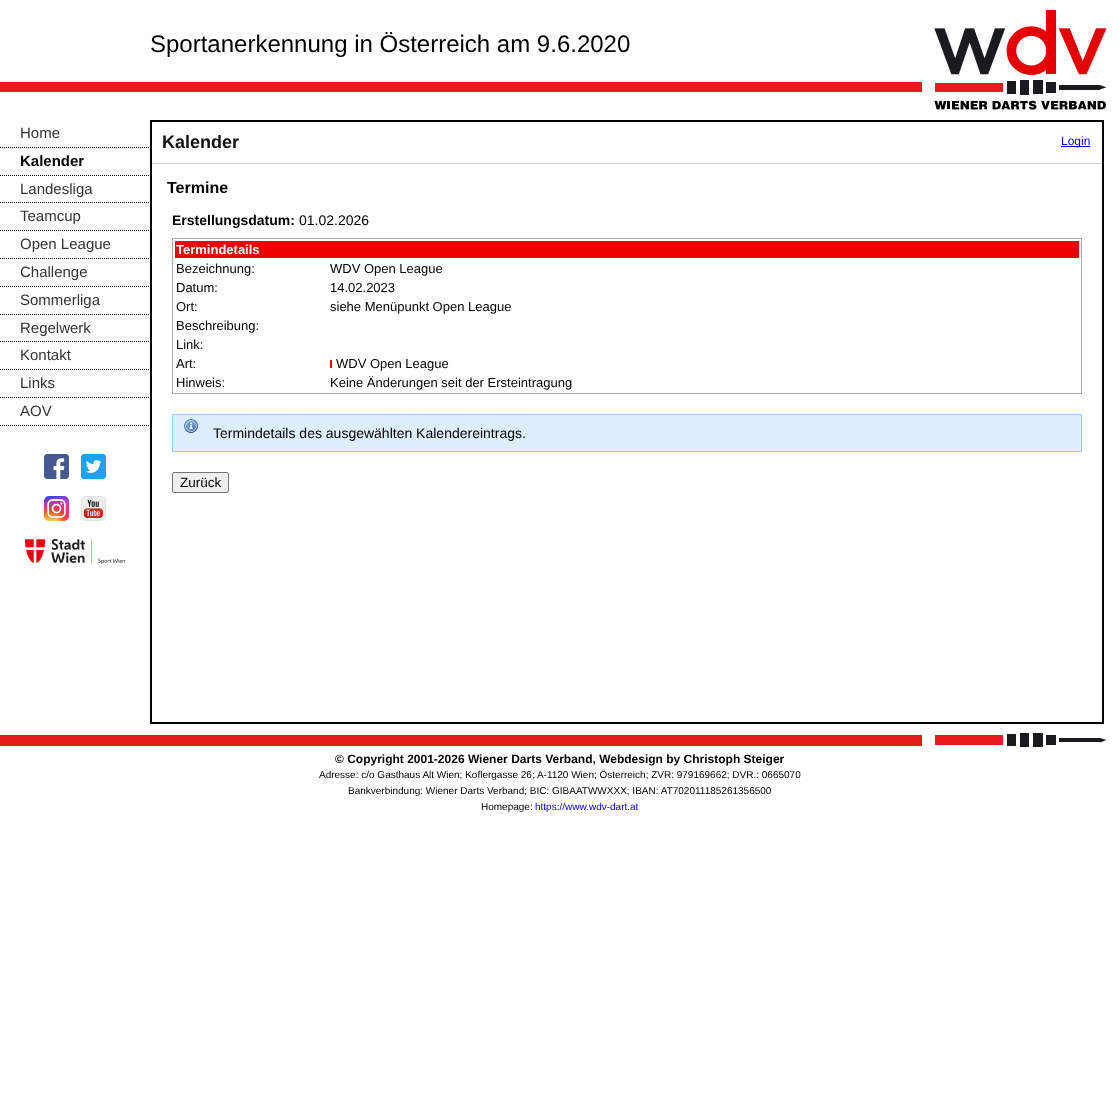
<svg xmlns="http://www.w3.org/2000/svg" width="1119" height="1107">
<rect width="100%" height="100%" fill="#fff"/>
<rect y="82" width="922" height="10" fill="#e71a1d"/>
<text x="150" y="52" style="font-family:Liberation Sans;font-size:24px;fill:#000">Sportanerkennung in Österreich am 9.6.2020</text>
<image x="922" y="10" width="197" height="100" href="media/1.png"/>
<path d="M0 147.5h150" fill="none" stroke="#000" stroke-dasharray="1 1"/>
<text x="20" y="138" style="font-family:Liberation Sans;font-size:15px;fill:#333">Home</text>
<path d="M0 175.5h150" fill="none" stroke="#000" stroke-dasharray="1 1"/>
<text x="20" y="166" style="font-family:Liberation Sans;font-size:15px;font-weight:bold;fill:#000">Kalender</text>
<path d="M0 202.5h150" fill="none" stroke="#000" stroke-dasharray="1 1"/>
<text x="20" y="194" style="font-family:Liberation Sans;font-size:15px;fill:#333">Landesliga</text>
<path d="M0 230.5h150" fill="none" stroke="#000" stroke-dasharray="1 1"/>
<text x="20" y="221" style="font-family:Liberation Sans;font-size:15px;fill:#333">Teamcup</text>
<path d="M0 258.5h150" fill="none" stroke="#000" stroke-dasharray="1 1"/>
<text x="20" y="249" style="font-family:Liberation Sans;font-size:15px;fill:#333">Open League</text>
<path d="M0 286.5h150" fill="none" stroke="#000" stroke-dasharray="1 1"/>
<text x="20" y="277" style="font-family:Liberation Sans;font-size:15px;fill:#333">Challenge</text>
<path d="M0 314.5h150" fill="none" stroke="#000" stroke-dasharray="1 1"/>
<text x="20" y="305" style="font-family:Liberation Sans;font-size:15px;fill:#333">Sommerliga</text>
<path d="M0 341.5h150" fill="none" stroke="#000" stroke-dasharray="1 1"/>
<text x="20" y="333" style="font-family:Liberation Sans;font-size:15px;fill:#333">Regelwerk</text>
<path d="M0 369.5h150" fill="none" stroke="#000" stroke-dasharray="1 1"/>
<text x="20" y="360" style="font-family:Liberation Sans;font-size:15px;fill:#333">Kontakt</text>
<path d="M0 397.5h150" fill="none" stroke="#000" stroke-dasharray="1 1"/>
<text x="20" y="388" style="font-family:Liberation Sans;font-size:15px;fill:#333">Links</text>
<path d="M0 425.5h150" fill="none" stroke="#000" stroke-dasharray="1 1"/>
<text x="20" y="416" style="font-family:Liberation Sans;font-size:15px;fill:#333">AOV</text>
<image x="44" y="454" width="25" height="25" href="media/2.png"/>
<image x="81" y="454" width="25" height="25" href="media/3.png"/>
<image x="44" y="496" width="25" height="25" href="media/4.png"/>
<image x="81" y="496" width="25" height="25" href="media/5.png"/>
<image x="25" y="539" width="100" height="25" href="media/6.png"/>
<rect x="151" y="121" width="952" height="602" fill="none" stroke="#000" stroke-width="2"/>
<text x="162" y="148" style="font-family:Liberation Sans;font-size:18px;font-weight:bold;fill:#111">Kalender</text>
<rect x="152" y="163" width="950" height="1" fill="#d3d3d3"/>
<text x="167" y="193" style="font-family:Liberation Sans;font-size:16px;font-weight:bold;fill:#000">Termine</text>
<text x="172" y="225" style="font-family:Liberation Sans;font-size:14px;font-weight:bold;fill:#000">Erstellungsdatum:</text>
<text x="299" y="225" style="font-family:Liberation Sans;font-size:14px;fill:#000">01.02.2026</text>
<rect x="172.5" y="238.5" width="909" height="155" fill="none" stroke="#aaa"/>
<rect x="175" y="241" width="904" height="17" fill="#e00"/>
<text x="176" y="254" style="font-family:Liberation Sans;font-size:13px;font-weight:bold;fill:#fff">Termindetails</text>
<text x="176" y="273" style="font-family:Liberation Sans;font-size:13px;fill:#000">Bezeichnung:</text>
<text x="330" y="273" style="font-family:Liberation Sans;font-size:13px;fill:#000">WDV Open League</text>
<text x="176" y="292" style="font-family:Liberation Sans;font-size:13px;fill:#000">Datum:</text>
<text x="330" y="292" style="font-family:Liberation Sans;font-size:13px;fill:#000">14.02.2023</text>
<text x="176" y="311" style="font-family:Liberation Sans;font-size:13px;fill:#000">Ort:</text>
<text x="330" y="311" style="font-family:Liberation Sans;font-size:13px;fill:#000">siehe Menüpunkt Open League</text>
<text x="176" y="330" style="font-family:Liberation Sans;font-size:13px;fill:#000">Beschreibung:</text>
<text x="176" y="349" style="font-family:Liberation Sans;font-size:13px;fill:#000">Link:</text>
<text x="176" y="368" style="font-family:Liberation Sans;font-size:13px;fill:#000">Art:</text>
<rect x="330" y="360" width="2" height="8" fill="#f00"/>
<text x="336" y="368" style="font-family:Liberation Sans;font-size:13px;fill:#000">WDV Open League</text>
<text x="176" y="387" style="font-family:Liberation Sans;font-size:13px;fill:#000">Hinweis:</text>
<text x="330" y="387" style="font-family:Liberation Sans;font-size:13px;fill:#000">Keine Änderungen seit der Ersteintragung</text>
<rect x="173" y="415" width="908" height="36" fill="#def"/>
<image x="184" y="419" width="14" height="14" href="media/7.png"/>
<rect x="172.5" y="414.5" width="909" height="37" fill="none" stroke="#9cf"/>
<text x="213" y="438" style="font-family:Liberation Sans;font-size:14px;fill:#000">Termindetails des ausgewählten Kalendereintrags.</text>
<rect x="172.5" y="472.5" width="56" height="20" rx="1.5" fill="#efefef" stroke="#767676"/>
<text x="180" y="487" style="font-family:Liberation Sans;font-size:13.5px;fill:#000">Zurück</text>
<rect x="1061" y="146" width="29" height="1" fill="#00e"/>
<text x="1061" y="145" style="font-family:Liberation Sans;font-size:12px;fill:#00e">Login</text>
<rect y="735" width="922" height="11" fill="#e71a1d"/>
<rect x="935" y="735" width="68" height="10" fill="#e81a1d"/>
<rect x="1007" y="734" width="9" height="12" fill="#1b1b1f"/>
<rect x="1020" y="733" width="9" height="14" fill="#1b1b1f"/>
<rect x="1033" y="733" width="10" height="14" fill="#1b1b1f"/>
<rect x="1046" y="735" width="10" height="10" fill="#1b1b1f"/>
<rect x="1059" y="738" width="41" height="4" fill="#1b1b1f"/>
<path d="M1106.5 740l-6.5 2.5v-4.5z" fill="#1b1b1f" fill-rule="evenodd"/>
<text x="335" y="763" style="font-family:Liberation Sans;font-size:12px;font-weight:bold;fill:#000">© Copyright 2001-2026 Wiener Darts Verband, Webdesign by Christoph Steiger</text>
<text x="319" y="778" style="font-family:Liberation Sans;font-size:10px;fill:#000">Adresse: c/o Gasthaus Alt Wien; Koflergasse 26; A-1120 Wien; Österreich; ZVR: 979169662; DVR.: 0665070</text>
<text x="348" y="794" style="font-family:Liberation Sans;font-size:10px;fill:#000">Bankverbindung: Wiener Darts Verband; BIC: GIBAATWWXXX; IBAN: AT702011185261356500</text>
<text x="481" y="810" style="font-family:Liberation Sans;font-size:10px;fill:#000">Homepage:</text>
<text x="535" y="810" style="font-family:Liberation Sans;font-size:10px;fill:#00f">https://www.wdv-dart.at</text>
</svg>
